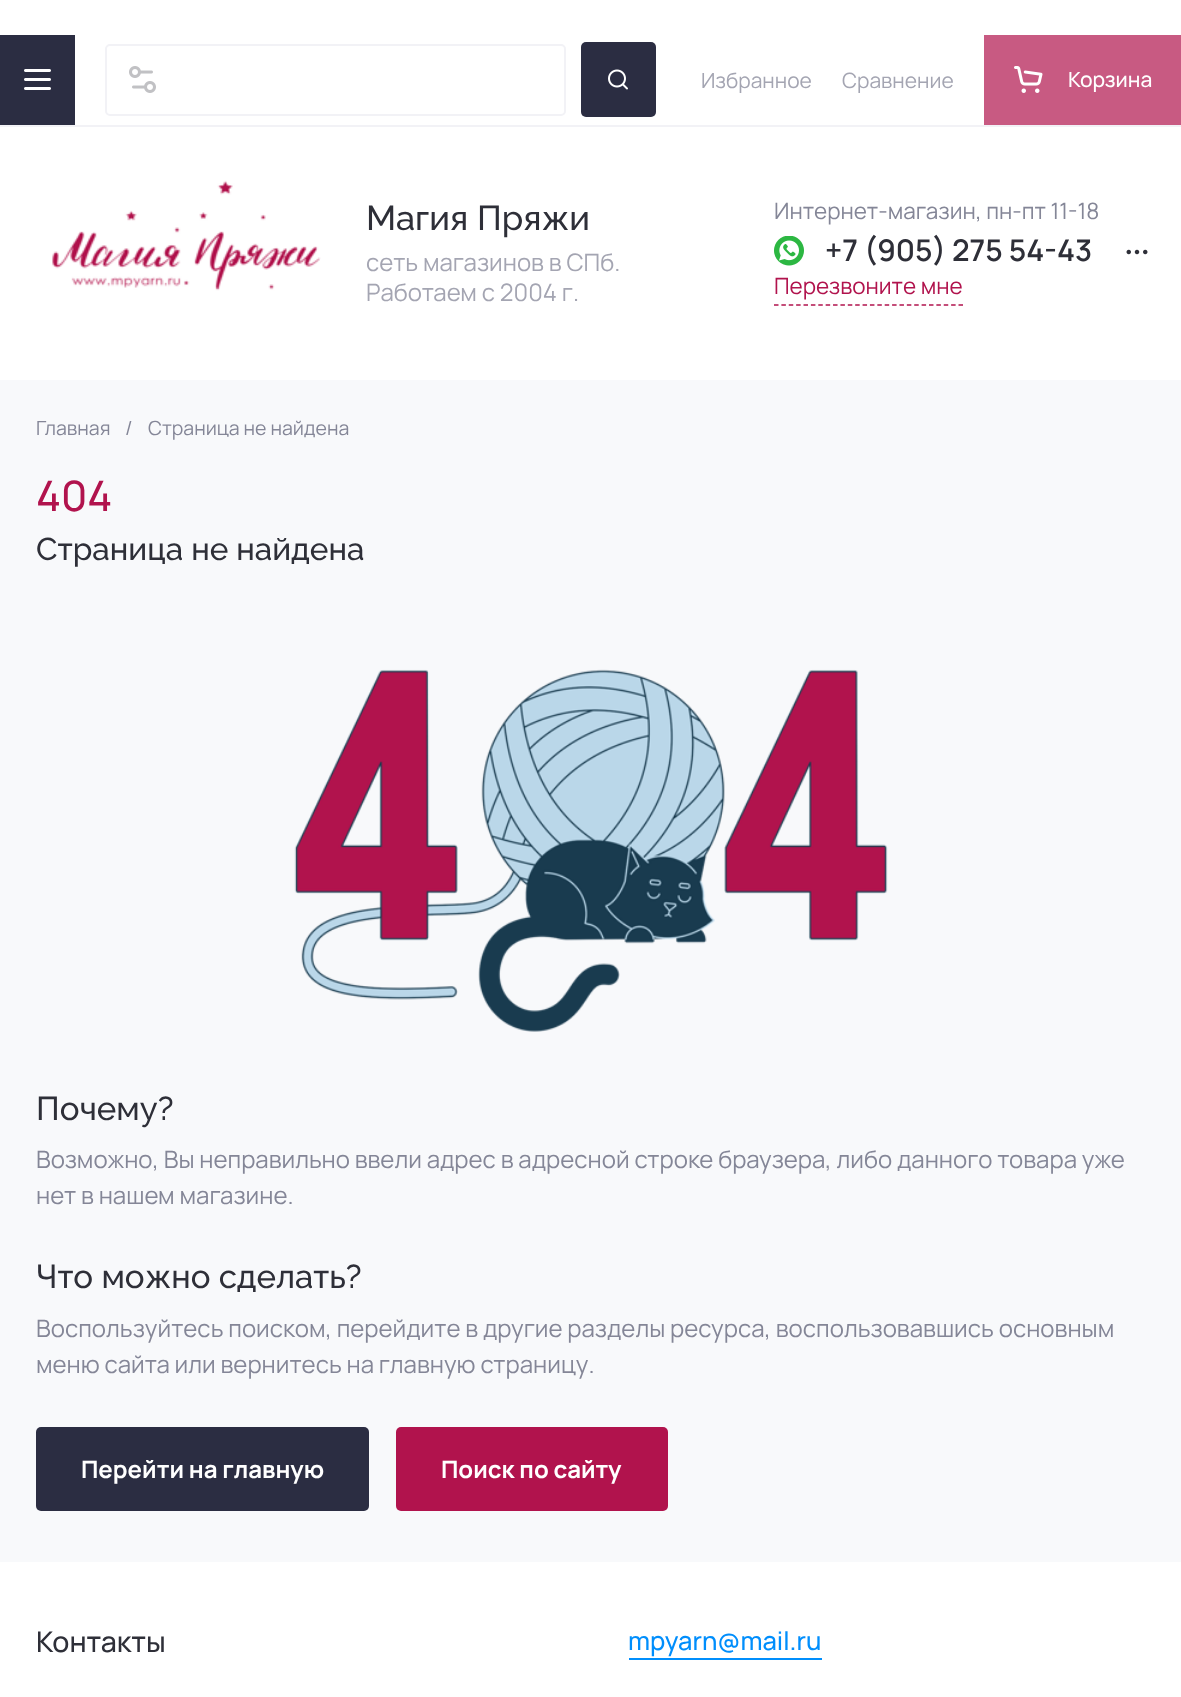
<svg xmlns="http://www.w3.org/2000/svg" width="1181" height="1697">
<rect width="100%" height="100%" fill="#fff"/>
<rect y="35" width="75" height="90" fill="#2b2d42"/>
<image x="24" y="69" width="27" height="21" href="media/1.png"/>
<rect x="106" y="45" width="459" height="70" rx="4" fill="none" stroke="#f2f2f6" stroke-width="2"/>
<rect x="581" y="42" width="75" height="75" rx="5" fill="#2b2d42"/>
<image x="608" y="69" width="20" height="21" href="media/2.png"/>
<image x="129" y="66" width="27" height="27" href="media/3.png"/>
<text x="701" y="88" style="font-family:Manrope;font-size:21px;fill:#a4a5b2">Избранное</text>
<text x="842" y="88" style="font-family:Manrope;font-size:21px;fill:#a4a5b2">Сравнение</text>
<rect x="984" y="35" width="197" height="90" fill="#c85a82"/>
<image x="1014" y="66" width="29" height="27" href="media/4.png"/>
<text x="1068" y="87" style="font-family:Manrope;font-size:21px;font-weight:500;fill:#fff">Корзина</text>
<rect y="125" width="1181" height="2" fill="#f2f2f6"/>
<image x="52" y="180" width="269" height="111" href="media/5.png"/>
<text x="366" y="230" style="font-family:Raleway;font-size:34.5px;font-weight:500;fill:#2e2f38">Магия Пряжи</text>
<text x="366" y="271" style="font-family:Manrope;font-size:24px;fill:#a4a5b2">сеть магазинов в СПб.</text>
<text x="366" y="301" style="font-family:Manrope;font-size:24px;fill:#a4a5b2">Работаем с 2004 г.</text>
<text x="774" y="219" style="font-family:Manrope;font-size:22.5px;fill:#848697">Интернет-магазин, пн-пт 11-18</text>
<image x="774" y="236" width="30" height="30" href="media/6.png"/>
<text x="825" y="261" style="font-family:Manrope;font-size:30px;font-weight:600;fill:#2e2f38">+7 (905) 275 54-43</text>
<path d="M774 305h189" fill="none" stroke="#b1134d" stroke-width="1.5" stroke-dasharray="4.5 2.88"/>
<text x="774" y="294" style="font-family:Manrope;font-size:22.5px;fill:#b1134d">Перезвоните мне</text>
<image x="1126" y="249" width="22" height="6" href="media/7.png"/>
<rect y="380" width="1181" height="1182" fill="#f8f9fb"/>
<text x="36" y="435" style="font-family:Manrope;font-size:19.5px;fill:#848697">Главная</text>
<text x="125" y="435" style="font-family:Manrope;font-size:19.5px;fill:#848697">/</text>
<text x="148" y="435" style="font-family:Manrope;font-size:19.5px;fill:#848697">Страница не найдена</text>
<text x="36" y="511" style="font-family:Manrope;font-size:42px;font-weight:500;fill:#b1134d">404</text>
<text x="36" y="560" style="font-family:Raleway;font-size:31.5px;font-weight:500;fill:#2e2f38">Страница не найдена</text>
<image x="294" y="669" width="594" height="363" href="media/8.png"/>
<text x="36" y="1120" style="font-family:Raleway;font-size:33px;font-weight:500;fill:#2e2f38">Почему?</text>
<text x="36" y="1168" style="font-family:Manrope;font-size:24px;fill:#848697">Возможно, Вы неправильно ввели адрес в адресной строке браузера, либо данного товара уже</text>
<text x="36" y="1204" style="font-family:Manrope;font-size:24px;fill:#848697">нет в нашем магазине.</text>
<text x="36" y="1288" style="font-family:Raleway;font-size:33px;font-weight:500;fill:#2e2f38">Что можно сделать?</text>
<text x="36" y="1337" style="font-family:Manrope;font-size:24px;fill:#848697">Воспользуйтесь поиском, перейдите в другие разделы ресурса, воспользовавшись основным</text>
<text x="36" y="1373" style="font-family:Manrope;font-size:24px;fill:#848697">меню сайта или вернитесь на главную страницу.</text>
<rect x="36" y="1427" width="333" height="84" rx="5" fill="#2b2d42"/>
<text x="81" y="1478" style="font-family:Manrope;font-size:24px;font-weight:bold;fill:#fff">Перейти на главную</text>
<rect x="396" y="1427" width="272" height="84" rx="5" fill="#b1134d"/>
<text x="441" y="1478" style="font-family:Manrope;font-size:24px;font-weight:bold;fill:#fff">Поиск по сайту</text>
<text x="36" y="1652" style="font-family:Manrope;font-size:28.5px;font-weight:500;fill:#2e2f38">Контакты</text>
<text x="628" y="1650" style="font-family:Manrope;font-size:25.5px;font-weight:500;fill:#008efc">mpyarn@mail.ru</text>
<rect x="629" y="1658" width="193" height="2" fill="#008efc"/>
</svg>
